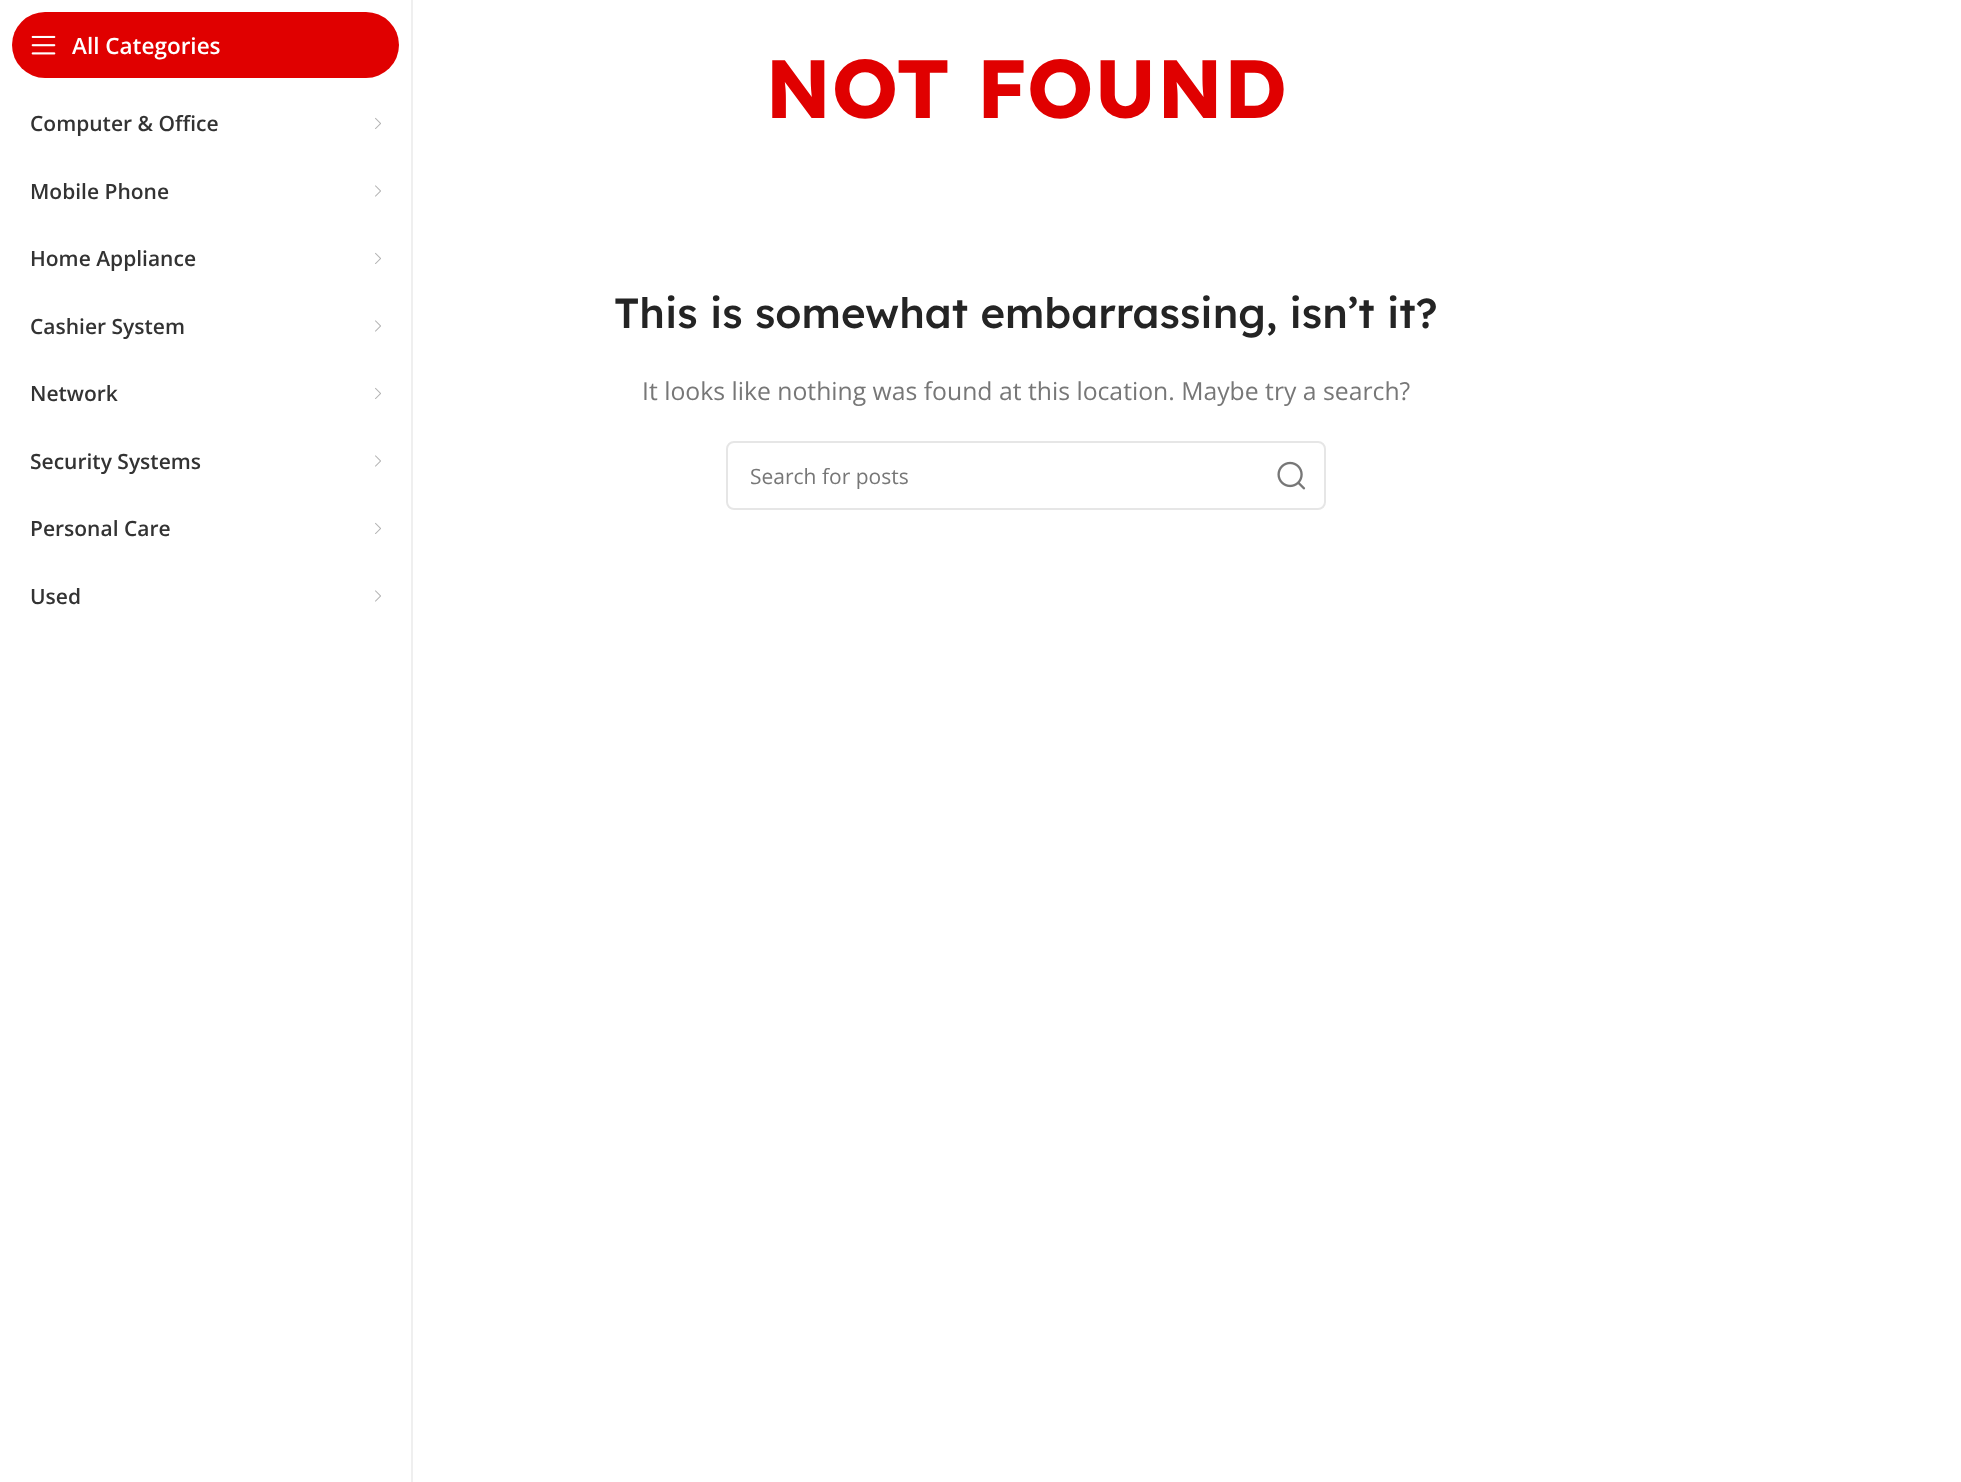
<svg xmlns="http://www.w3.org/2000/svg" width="1961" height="1482">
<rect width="100%" height="100%" fill="#fff"/>
<rect x="411" width="2" height="1482" fill="#efefef"/>
<rect x="12" y="12" width="387" height="66" rx="33" fill="#e00000"/>
<image x="31" y="35" width="25" height="20" href="media/1.png"/>
<text x="72" y="54" style="font-family:Open Sans;font-size:22.5px;font-weight:600;fill:#fff">All Categories</text>
<text x="30" y="131" style="font-family:Open Sans;font-size:21px;font-weight:600;fill:#333">Computer &amp; Office</text>
<image x="375" y="117" width="6" height="12" href="media/2.png"/>
<text x="30" y="199" style="font-family:Open Sans;font-size:21px;font-weight:600;fill:#333">Mobile Phone</text>
<image x="375" y="185" width="6" height="12" href="media/3.png"/>
<text x="30" y="266" style="font-family:Open Sans;font-size:21px;font-weight:600;fill:#333">Home Appliance</text>
<image x="375" y="252" width="6" height="12" href="media/2.png"/>
<text x="30" y="334" style="font-family:Open Sans;font-size:21px;font-weight:600;fill:#333">Cashier System</text>
<image x="375" y="320" width="6" height="12" href="media/3.png"/>
<text x="30" y="401" style="font-family:Open Sans;font-size:21px;font-weight:600;fill:#333">Network</text>
<image x="375" y="387" width="6" height="12" href="media/2.png"/>
<text x="30" y="469" style="font-family:Open Sans;font-size:21px;font-weight:600;fill:#333">Security Systems</text>
<image x="375" y="455" width="6" height="12" href="media/3.png"/>
<text x="30" y="536" style="font-family:Open Sans;font-size:21px;font-weight:600;fill:#333">Personal Care</text>
<image x="375" y="522" width="6" height="12" href="media/2.png"/>
<text x="30" y="604" style="font-family:Open Sans;font-size:21px;font-weight:600;fill:#333">Used</text>
<image x="375" y="590" width="6" height="12" href="media/3.png"/>
<text x="765" y="118" style="font-family:Lexend Deca;font-size:82.5px;font-weight:bold;fill:#e00000">NOT FOUND</text>
<text x="614" y="328" style="font-family:Lexend Deca;font-size:42px;font-weight:500;fill:#242424">This is somewhat embarrassing, isn’t it?</text>
<text x="642" y="400" style="font-family:Open Sans;font-size:24.75px;fill:#777">It looks like nothing was found at this location. Maybe try a search?</text>
<rect x="727" y="442" width="598" height="67" rx="7" fill="none" stroke="#e6e6e6" stroke-width="2"/>
<text x="750" y="484" style="font-family:Open Sans;font-size:21px;fill:#777">Search for posts</text>
<image x="1277" y="461" width="29" height="29" href="media/4.png"/>
</svg>
